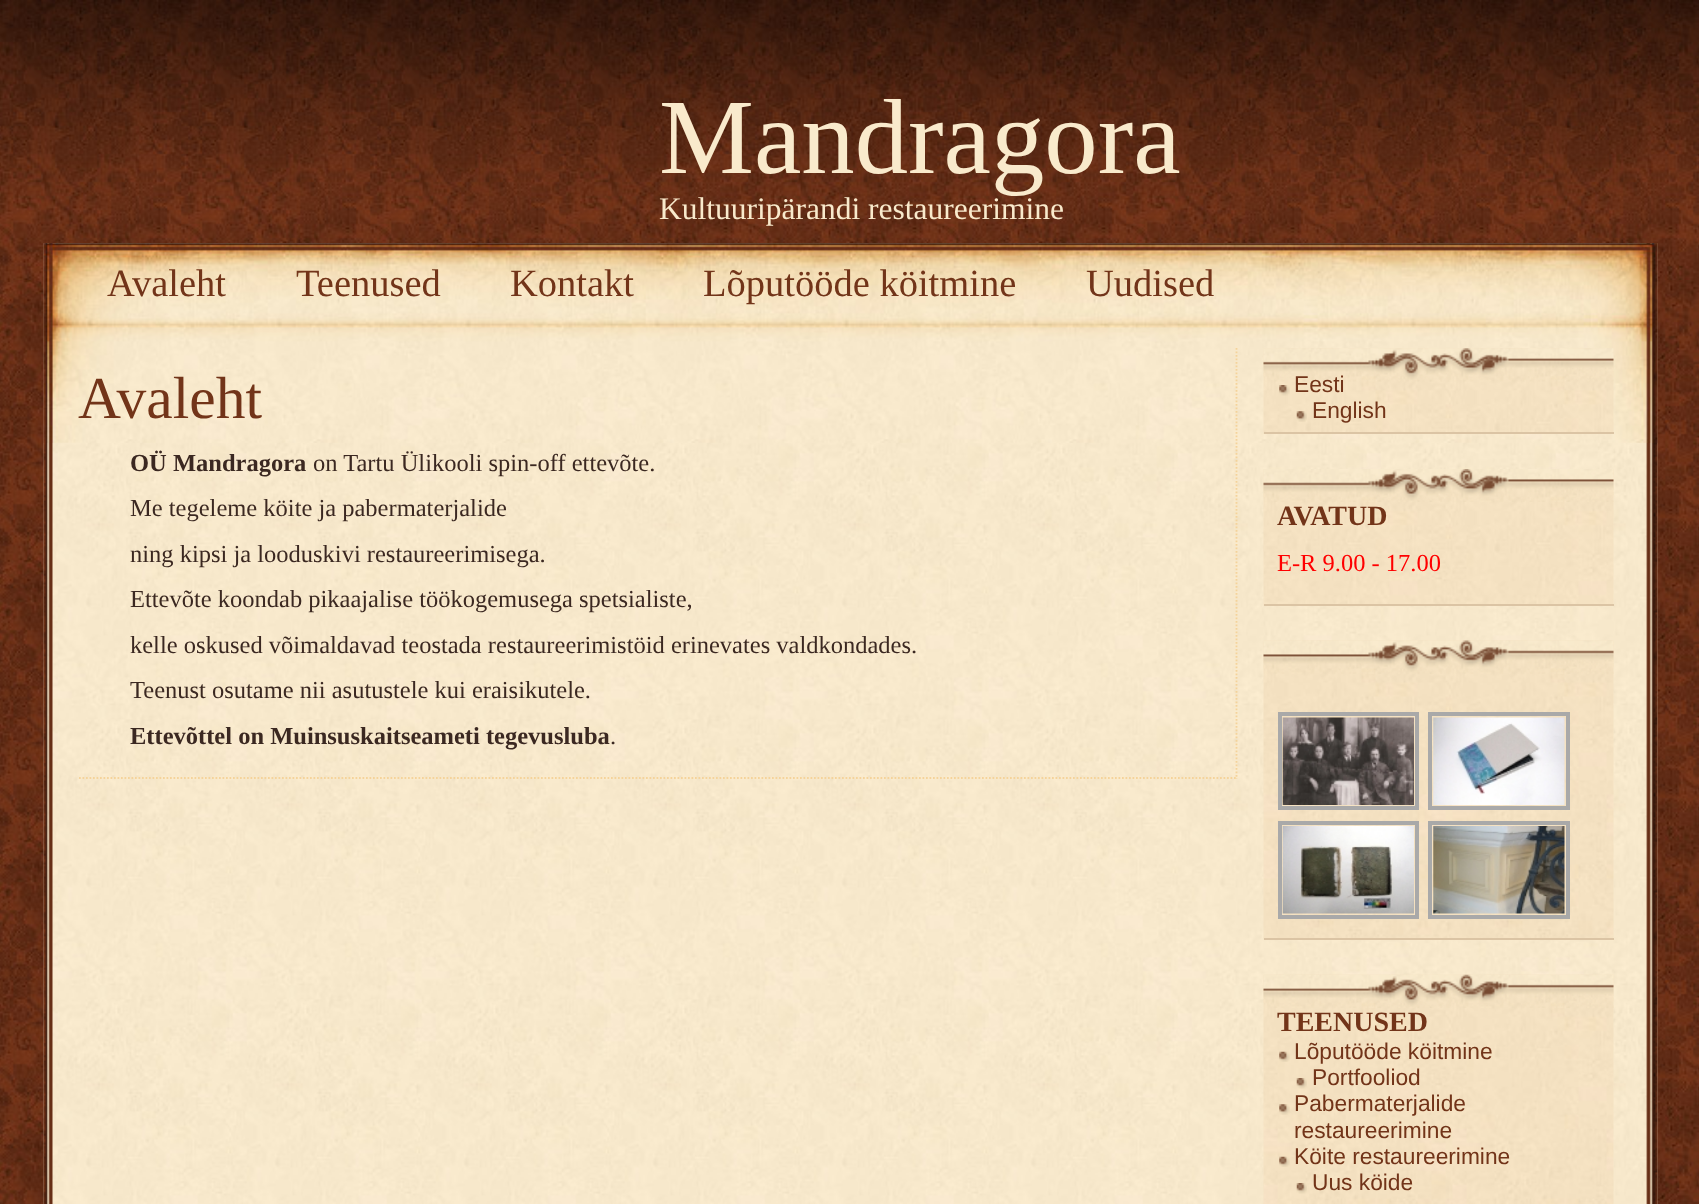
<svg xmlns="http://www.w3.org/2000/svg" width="1699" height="1204">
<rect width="100%" height="100%" fill="#fff"/>
<image x="0" y="280" width="1699" height="924" href="media/1.png"/>
<image x="0" y="0" width="1699" height="280" href="media/2.png"/>
<text x="659" y="173" style="font-family:Liberation Serif;font-size:106.75px;fill:#f9eacc">Mandragora</text>
<text x="659" y="219" style="font-family:Liberation Serif;font-size:31.5px;fill:#f9eacc">Kultuuripärandi restaureerimine</text>
<image x="43" y="243" width="1615" height="961" href="media/3.png"/>
<image x="43" y="243" width="1615" height="961" href="media/4.png"/>
<image x="43" y="243" width="1615" height="200" href="media/5.png"/>
<text x="107" y="296" style="font-family:Liberation Serif;font-size:38.5px;fill:#723419">Avaleht</text>
<text x="296" y="296" style="font-family:Liberation Serif;font-size:38.5px;fill:#723419">Teenused</text>
<text x="510" y="296" style="font-family:Liberation Serif;font-size:38.5px;fill:#723419">Kontakt</text>
<text x="703" y="296" style="font-family:Liberation Serif;font-size:38.5px;fill:#723419">Lõputööde köitmine</text>
<text x="1086" y="296" style="font-family:Liberation Serif;font-size:38.5px;fill:#723419">Uudised</text>
<path d="M1236.5 348v431" fill="none" stroke="#f5d39a" stroke-width="1.8" stroke-dasharray="1.75 1.75"/>
<path d="M79 778h1158" fill="none" stroke="#f5d39a" stroke-width="1.8" stroke-dasharray="1.75 1.75"/>
<text x="78" y="418" style="font-family:Liberation Serif;font-size:59.5px;fill:#723419">Avaleht</text>
<text x="130" y="471" style="font-family:Liberation Serif;font-size:24.5px;font-weight:bold;fill:#3b2821">OÜ Mandragora</text>
<text x="313" y="471" style="font-family:Liberation Serif;font-size:24.5px;fill:#3b2821">on Tartu Ülikooli spin-off ettevõte.</text>
<text x="130" y="516" style="font-family:Liberation Serif;font-size:24.5px;fill:#3b2821">Me tegeleme köite ja pabermaterjalide</text>
<text x="130" y="562" style="font-family:Liberation Serif;font-size:24.5px;fill:#3b2821">ning kipsi ja looduskivi restaureerimisega.</text>
<text x="130" y="607" style="font-family:Liberation Serif;font-size:24.5px;fill:#3b2821">Ettevõte koondab pikaajalise töökogemusega spetsialiste,</text>
<text x="130" y="653" style="font-family:Liberation Serif;font-size:24.5px;fill:#3b2821">kelle oskused võimaldavad teostada restaureerimistöid erinevates valdkondades.</text>
<text x="130" y="698" style="font-family:Liberation Serif;font-size:24.5px;fill:#3b2821">Teenust osutame nii asutustele kui eraisikutele.</text>
<text x="130" y="744" style="font-family:Liberation Serif;font-size:24.5px;font-weight:bold;fill:#3b2821">Ettevõttel on Muinsuskaitseameti tegevusluba</text>
<text x="610" y="744" style="font-family:Liberation Serif;font-size:24.5px;fill:#3b2821">.</text>
<image x="1263" y="348" width="351" height="86" href="media/6.png"/>
<rect x="1264" y="432" width="350" height="2" fill="#dbc4a4"/>
<image x="1263" y="348" width="351" height="34" href="media/7.png"/>
<image x="1279" y="385" width="11" height="11" href="media/8.png"/>
<text x="1294" y="392" style="font-family:Liberation Sans;font-size:22.75px;fill:#723419">Eesti</text>
<image x="1296" y="411" width="11" height="11" href="media/9.png"/>
<text x="1312" y="418" style="font-family:Liberation Sans;font-size:22.75px;fill:#723419">English</text>
<image x="1263" y="469" width="351" height="137" href="media/10.png"/>
<rect x="1264" y="604" width="350" height="2" fill="#dbc4a4"/>
<image x="1263" y="469" width="351" height="33" href="media/11.png"/>
<text x="1277" y="525" style="font-family:Liberation Serif;font-size:28px;font-weight:bold;fill:#723419">AVATUD</text>
<text x="1277" y="571" style="font-family:Liberation Serif;font-size:24.5px;fill:#f00">E-R 9.00 - 17.00</text>
<image x="1263" y="640" width="351" height="300" href="media/12.png"/>
<rect x="1264" y="938" width="350" height="2" fill="#dbc4a4"/>
<image x="1263" y="640" width="351" height="34" href="media/13.png"/>
<rect x="1280" y="714" width="137" height="94" fill="none" stroke="#a9a9a9" stroke-width="4"/>
<rect x="1430" y="714" width="138" height="94" fill="none" stroke="#a9a9a9" stroke-width="4"/>
<image x="1282" y="717" width="132" height="88" href="media/14.png"/>
<image x="1433" y="717" width="132" height="88" href="media/15.png"/>
<rect x="1280" y="823" width="137" height="94" fill="none" stroke="#a9a9a9" stroke-width="4"/>
<rect x="1430" y="823" width="138" height="94" fill="none" stroke="#a9a9a9" stroke-width="4"/>
<image x="1282" y="826" width="132" height="88" href="media/16.png"/>
<image x="1433" y="826" width="132" height="88" href="media/17.png"/>
<image x="1263" y="974" width="351" height="230" href="media/18.png"/>
<image x="1263" y="974" width="351" height="34" href="media/19.png"/>
<text x="1277" y="1031" style="font-family:Liberation Serif;font-size:28px;font-weight:bold;fill:#723419">TEENUSED</text>
<image x="1279" y="1051" width="11" height="11" href="media/20.png"/>
<text x="1294" y="1059" style="font-family:Liberation Sans;font-size:22.75px;fill:#723419">Lõputööde köitmine</text>
<image x="1296" y="1078" width="11" height="11" href="media/21.png"/>
<text x="1312" y="1085" style="font-family:Liberation Sans;font-size:22.75px;fill:#723419">Portfooliod</text>
<image x="1279" y="1104" width="11" height="11" href="media/22.png"/>
<text x="1294" y="1111" style="font-family:Liberation Sans;font-size:22.75px;fill:#723419">Pabermaterjalide</text>
<text x="1294" y="1138" style="font-family:Liberation Sans;font-size:22.75px;fill:#723419">restaureerimine</text>
<image x="1279" y="1156" width="11" height="11" href="media/23.png"/>
<text x="1294" y="1164" style="font-family:Liberation Sans;font-size:22.75px;fill:#723419">Köite restaureerimine</text>
<image x="1296" y="1183" width="11" height="11" href="media/24.png"/>
<text x="1312" y="1190" style="font-family:Liberation Sans;font-size:22.75px;fill:#723419">Uus köide</text>
</svg>
